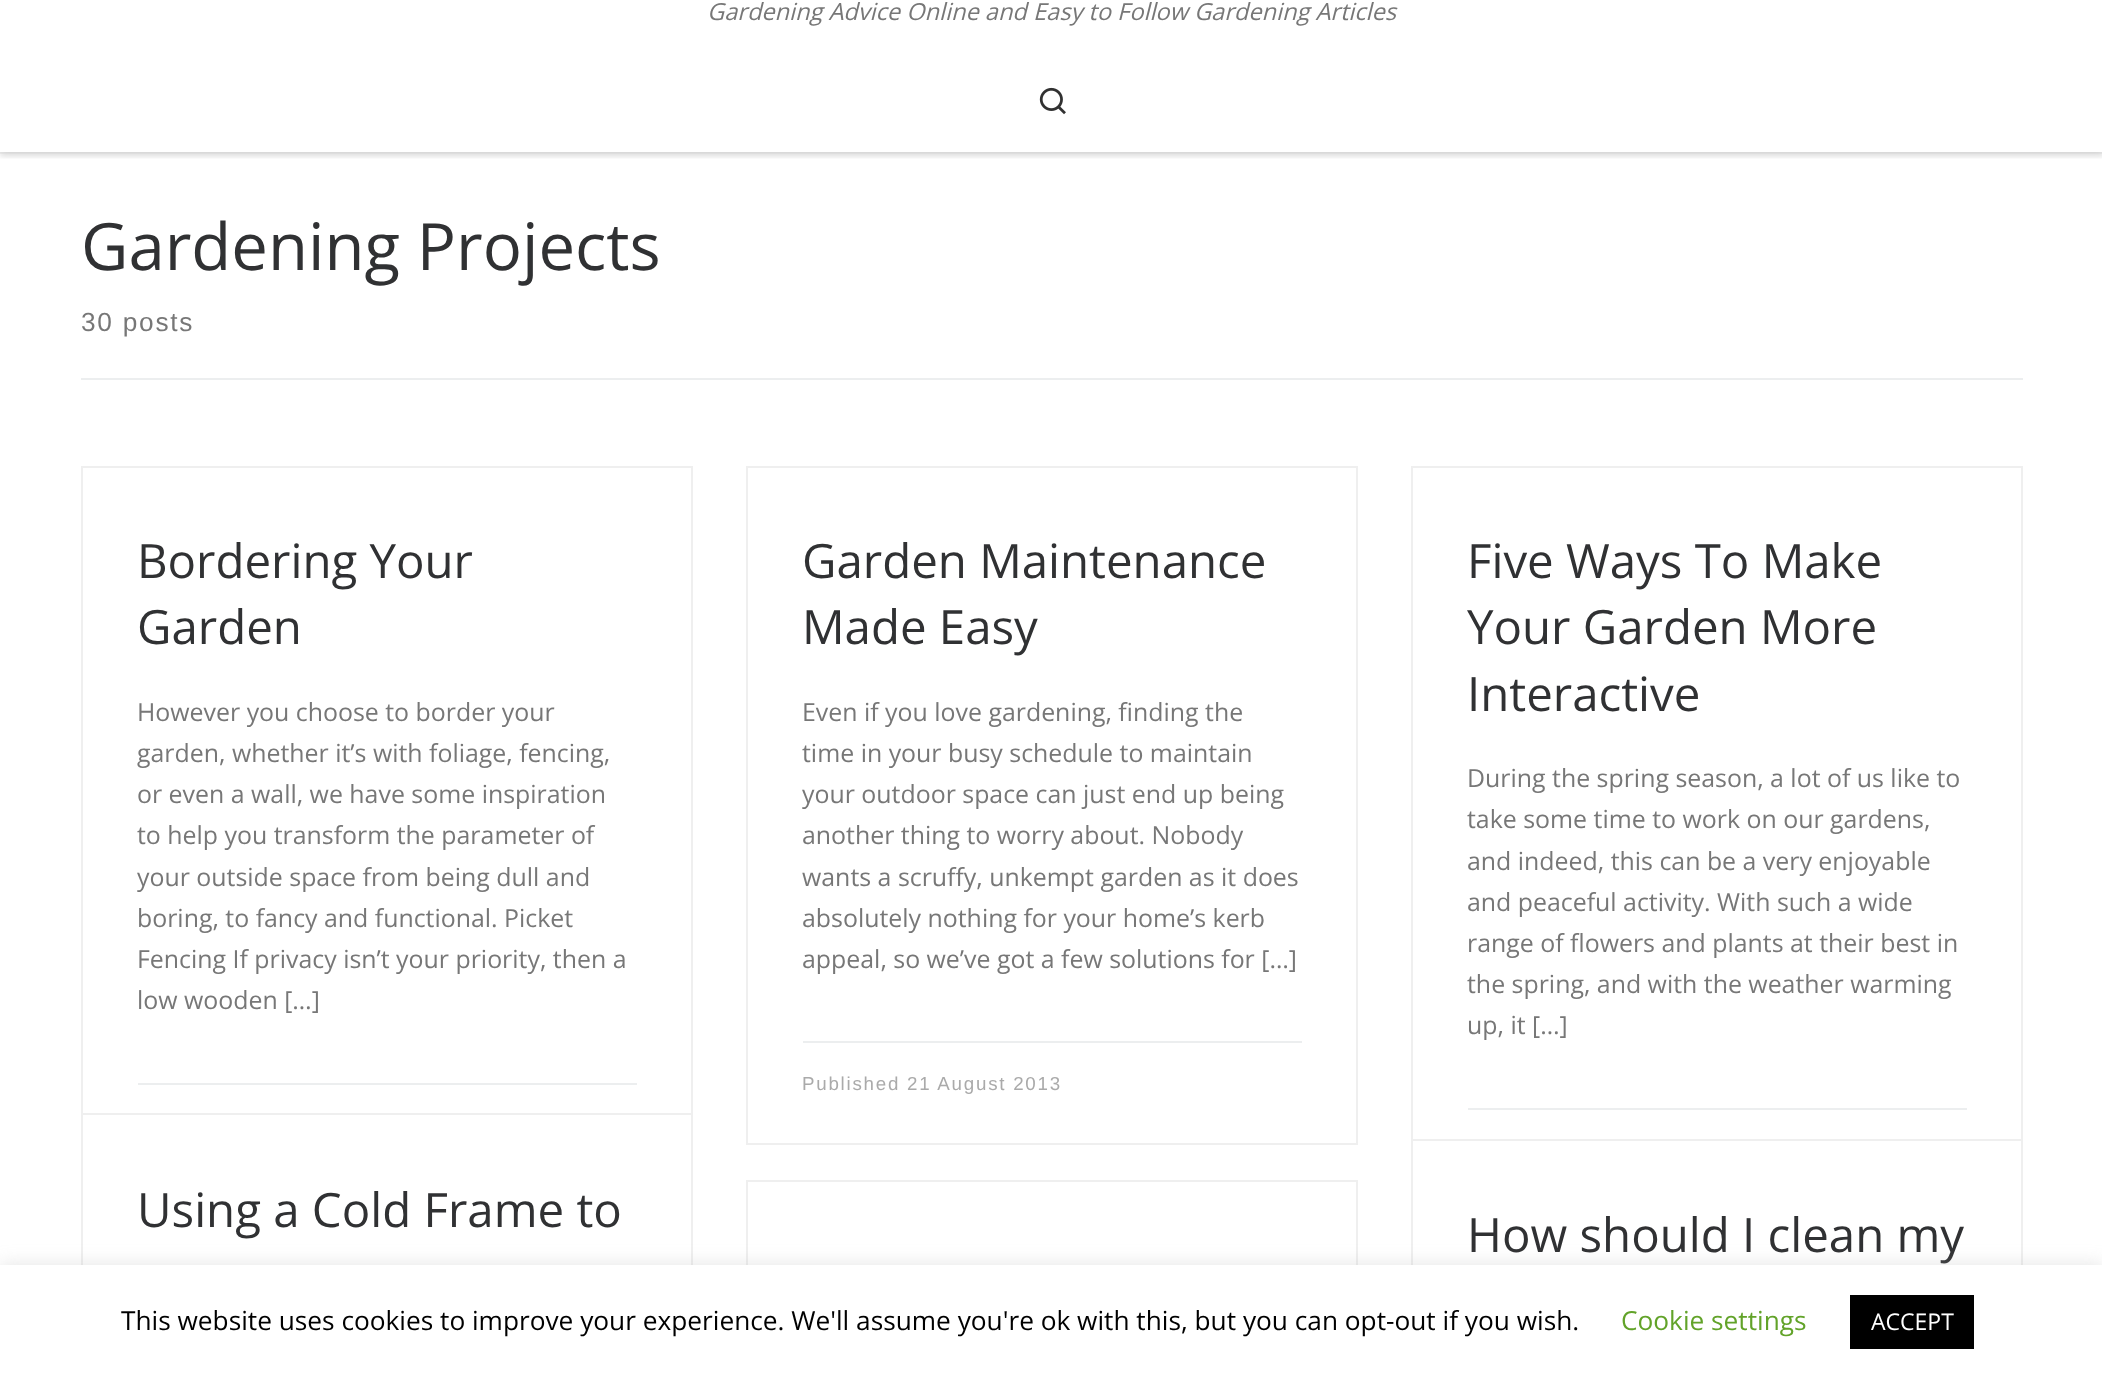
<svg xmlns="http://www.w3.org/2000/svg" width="2102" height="1378">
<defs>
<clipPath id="clip1"><rect x="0" y="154" width="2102" height="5"/></clipPath>
<clipPath id="clip2"><rect x="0" y="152" width="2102" height="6"/></clipPath>
</defs>
<rect width="100%" height="100%" fill="#fff"/>
<g clip-path="url(#clip1)">
<rect y="-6" width="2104" height="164" fill="#66666614" filter="blur(2px)"/>
</g>
<path d="M0 152v2h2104v-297v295z" fill="#efefef"/>
<g clip-path="url(#clip2)">
<rect y="-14" width="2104" height="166" fill="#00000033" filter="blur(4.5px)"/>
</g>
<text x="707" y="20" style="font-family:Open Sans;font-size:23.6px;font-style:italic;fill:#777">Gardening Advice Online and Easy to Follow Gardening Articles</text>
<image x="1039" y="87" width="27" height="28" href="media/1.png"/>
<text x="81" y="270" style="font-family:Open Sans;font-size:65.25px;fill:#303133">Gardening Projects</text>
<text x="81" y="331" style="font-family:Liberation Sans;font-size:26.25px;letter-spacing:1.75px;fill:#777">30 posts</text>
<rect x="81" y="378" width="1942" height="2" fill="#eceeef"/>
<rect x="82" y="467" width="610" height="719" fill="none" stroke="#efefef" stroke-width="2"/>
<text x="137" y="578" style="font-family:Open Sans;font-size:47.4px;fill:#303133">Bordering Your</text>
<text x="137" y="644" style="font-family:Open Sans;font-size:47.4px;fill:#303133">Garden</text>
<text x="137" y="721" style="font-family:Open Sans;font-size:24.9px;fill:#777">However you choose to border your</text>
<text x="137" y="762" style="font-family:Open Sans;font-size:24.9px;fill:#777">garden, whether it’s with foliage, fencing,</text>
<text x="137" y="803" style="font-family:Open Sans;font-size:24.9px;fill:#777">or even a wall, we have some inspiration</text>
<text x="137" y="844" style="font-family:Open Sans;font-size:24.9px;fill:#777">to help you transform the parameter of</text>
<text x="137" y="886" style="font-family:Open Sans;font-size:24.9px;fill:#777">your outside space from being dull and</text>
<text x="137" y="927" style="font-family:Open Sans;font-size:24.9px;fill:#777">boring, to fancy and functional. Picket</text>
<text x="137" y="968" style="font-family:Open Sans;font-size:24.9px;fill:#777">Fencing If privacy isn’t your priority, then a</text>
<text x="137" y="1009" style="font-family:Open Sans;font-size:24.9px;fill:#777">low wooden […]</text>
<rect x="138" y="1083" width="499" height="2" fill="#eceeef"/>
<rect x="747" y="467" width="610" height="677" fill="none" stroke="#efefef" stroke-width="2"/>
<text x="802" y="578" style="font-family:Open Sans;font-size:47.4px;fill:#303133">Garden Maintenance</text>
<text x="802" y="644" style="font-family:Open Sans;font-size:47.4px;fill:#303133">Made Easy</text>
<text x="802" y="721" style="font-family:Open Sans;font-size:24.9px;fill:#777">Even if you love gardening, finding the</text>
<text x="802" y="762" style="font-family:Open Sans;font-size:24.9px;fill:#777">time in your busy schedule to maintain</text>
<text x="802" y="803" style="font-family:Open Sans;font-size:24.9px;fill:#777">your outdoor space can just end up being</text>
<text x="802" y="844" style="font-family:Open Sans;font-size:24.9px;fill:#777">another thing to worry about. Nobody</text>
<text x="802" y="886" style="font-family:Open Sans;font-size:24.9px;fill:#777">wants a scruffy, unkempt garden as it does</text>
<text x="802" y="927" style="font-family:Open Sans;font-size:24.9px;fill:#777">absolutely nothing for your home’s kerb</text>
<text x="802" y="968" style="font-family:Open Sans;font-size:24.9px;fill:#777">appeal, so we’ve got a few solutions for […]</text>
<rect x="803" y="1041" width="499" height="2" fill="#eceeef"/>
<text x="802" y="1090" style="font-family:Liberation Sans;font-size:18.75px;letter-spacing:1.75px;fill:#aaa">Published 21 August 2013</text>
<rect x="1412" y="467" width="610" height="743" fill="none" stroke="#efefef" stroke-width="2"/>
<text x="1467" y="578" style="font-family:Open Sans;font-size:47.4px;fill:#303133">Five Ways To Make</text>
<text x="1467" y="644" style="font-family:Open Sans;font-size:47.4px;fill:#303133">Your Garden More</text>
<text x="1467" y="711" style="font-family:Open Sans;font-size:47.4px;fill:#303133">Interactive</text>
<text x="1467" y="787" style="font-family:Open Sans;font-size:24.9px;fill:#777">During the spring season, a lot of us like to</text>
<text x="1467" y="828" style="font-family:Open Sans;font-size:24.9px;fill:#777">take some time to work on our gardens,</text>
<text x="1467" y="870" style="font-family:Open Sans;font-size:24.9px;fill:#777">and indeed, this can be a very enjoyable</text>
<text x="1467" y="911" style="font-family:Open Sans;font-size:24.9px;fill:#777">and peaceful activity. With such a wide</text>
<text x="1467" y="952" style="font-family:Open Sans;font-size:24.9px;fill:#777">range of flowers and plants at their best in</text>
<text x="1467" y="993" style="font-family:Open Sans;font-size:24.9px;fill:#777">the spring, and with the weather warming</text>
<text x="1467" y="1034" style="font-family:Open Sans;font-size:24.9px;fill:#777">up, it […]</text>
<rect x="1468" y="1108" width="499" height="2" fill="#eceeef"/>
<rect x="83" y="1185" width="608" height="2" fill="#fff"/>
<rect x="82" y="1114" width="610" height="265" fill="none" stroke="#efefef" stroke-width="2"/>
<text x="137" y="1227" style="font-family:Open Sans;font-size:47.4px;fill:#303133">Using a Cold Frame to</text>
<rect x="747" y="1181" width="610" height="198" fill="none" stroke="#efefef" stroke-width="2"/>
<rect x="1413" y="1209" width="608" height="2" fill="#fff"/>
<rect x="1412" y="1140" width="610" height="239" fill="none" stroke="#efefef" stroke-width="2"/>
<text x="1467" y="1252" style="font-family:Open Sans;font-size:47.4px;fill:#303133">How should I clean my</text>
<rect y="1264" width="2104" height="113" fill="#acabab4d" filter="blur(9px)"/>
<rect y="1265" width="2102" height="113" fill="#fff"/>
<text x="121" y="1330" style="font-family:Open Sans;font-size:26.25px;fill:#000">This website uses cookies to improve your experience. We'll assume you're ok with this, but you can opt-out if you wish.</text>
<text x="1621" y="1330" style="font-family:Open Sans;font-size:26.25px;fill:#62a329">Cookie settings</text>
<rect x="1850" y="1295" width="124" height="54" fill="#000"/>
<text x="1871" y="1330" style="font-family:Open Sans;font-size:23px;fill:#fff">ACCEPT</text>
</svg>
